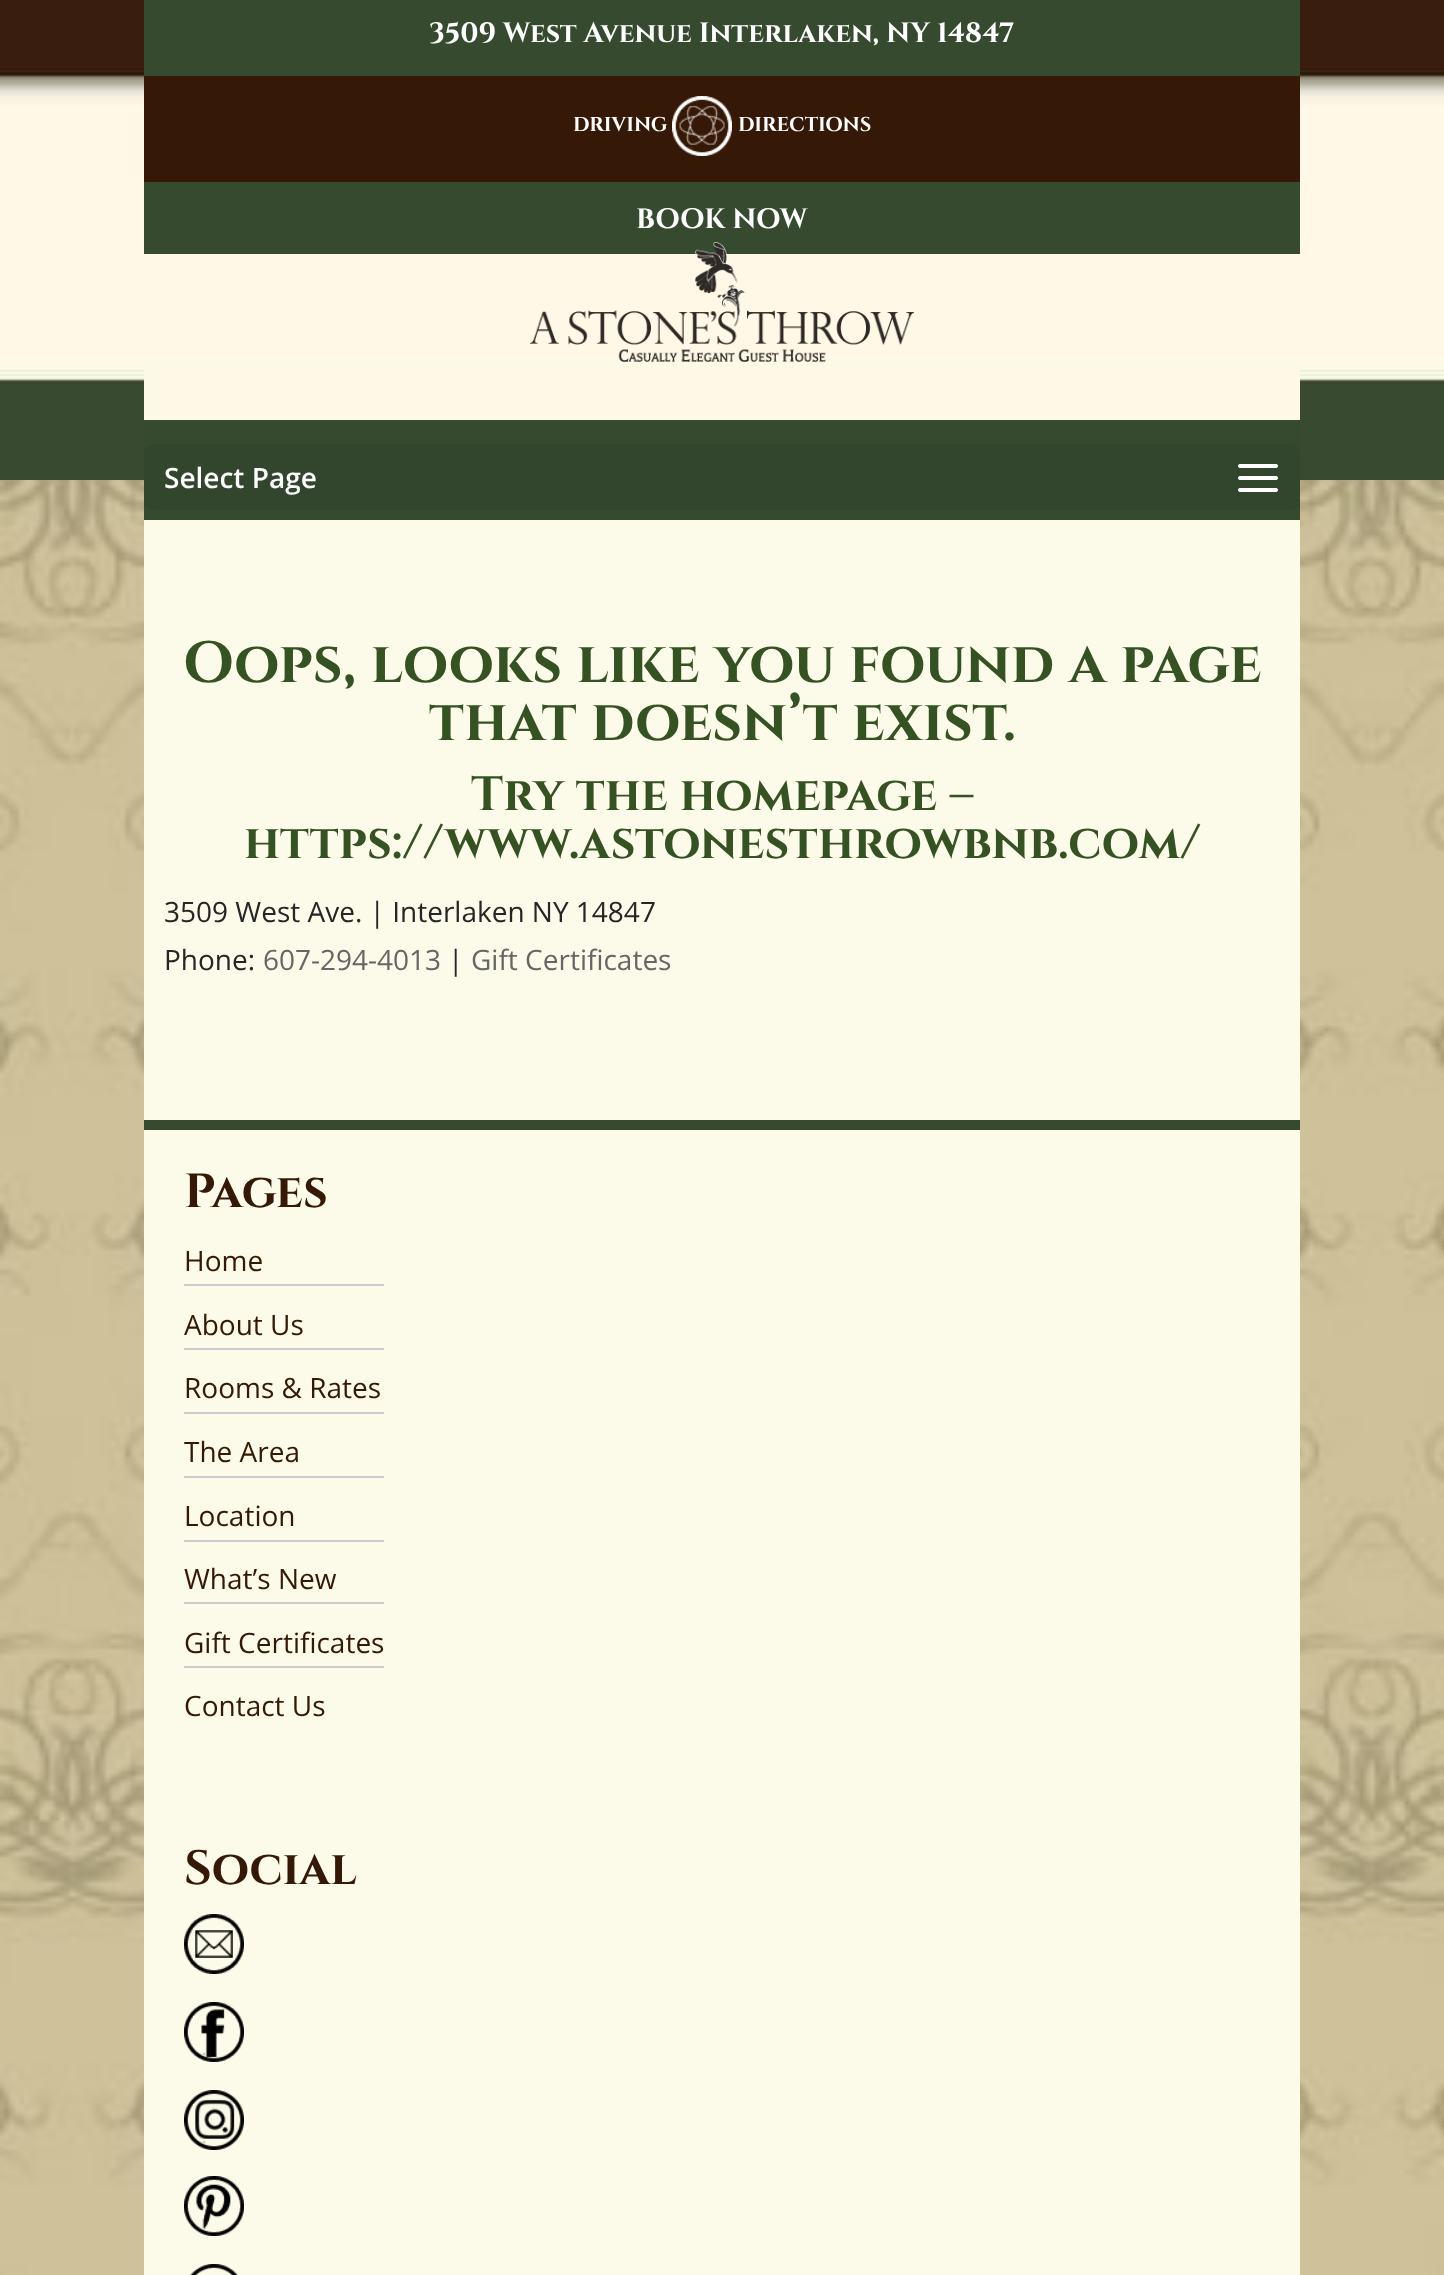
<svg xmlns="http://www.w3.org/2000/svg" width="1444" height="2275">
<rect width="100%" height="100%" fill="#fff"/>
<image x="0" y="480" width="1444" height="1795" href="media/1.png"/>
<image x="0" y="0" width="1444" height="480" href="media/2.png"/>
<rect x="144" y="368" width="1156" height="52" fill="#fef8e7"/>
<rect x="144" y="420" width="1156" height="100" fill="#354a2f"/>
<rect x="144" width="1156" height="76" fill="#354a2f"/>
<text x="429" y="42" style="font-family:Cinzel;font-size:28px;font-weight:bold;fill:#fff">3509 West Avenue Interlaken, NY 14847</text>
<rect x="144" y="76" width="1156" height="106" fill="#351805"/>
<text x="573" y="131" style="font-family:Cinzel;font-size:20px;font-weight:bold;fill:#fff">DRIVING</text>
<image x="672" y="96" width="60" height="60" href="media/3.png"/>
<text x="738" y="131" style="font-family:Cinzel;font-size:20px;font-weight:bold;fill:#fff">DIRECTIONS</text>
<rect x="144" y="182" width="1156" height="72" fill="#354a2f"/>
<text x="636" y="228" style="font-family:Cinzel;font-size:28px;font-weight:bold;fill:#fff">BOOK NOW</text>
<image x="530" y="242" width="384" height="120" href="media/4.png"/>
<rect x="144" y="444" width="1156" height="66" rx="10" fill="#32462d"/>
<text x="164" y="488" style="font-family:Open Sans;font-size:28px;font-weight:600;fill:#fff">Select Page</text>
<image x="1238" y="464" width="40" height="28" href="media/5.png"/>
<rect x="144" y="520" width="1156" height="600" fill="#fcfae8"/>
<text x="183" y="682" style="font-family:Cinzel;font-size:58px;font-weight:bold;fill:#355222">Oops, looks like you found a page</text>
<text x="429" y="740" style="font-family:Cinzel;font-size:58px;font-weight:bold;fill:#355222">that doesn’t exist.</text>
<text x="471" y="810" style="font-family:Cinzel;font-size:48px;font-weight:bold;fill:#355222">Try the homepage –</text>
<text x="244" y="858" style="font-family:Cinzel;font-size:48px;font-weight:bold;fill:#355222">https://www.astonesthrowbnb.com/</text>
<text x="164" y="922" style="font-family:Open Sans;font-size:28px;fill:#262626">3509 West Ave. | Interlaken NY 14847</text>
<text x="164" y="970" style="font-family:Open Sans;font-size:28px;fill:#262626">Phone:</text>
<text x="263" y="970" style="font-family:Open Sans;font-size:28px;fill:#666">607-294-4013</text>
<text x="448" y="970" style="font-family:Open Sans;font-size:28px;fill:#262626">|</text>
<text x="471" y="970" style="font-family:Open Sans;font-size:28px;fill:#666">Gift Certificates</text>
<rect x="144" y="1130" width="1156" height="1145" fill="#fcfae8"/>
<rect x="144" y="1120" width="1156" height="10" fill="#354a2f"/>
<text x="184" y="1207" style="font-family:Cinzel;font-size:48px;font-weight:bold;fill:#351805">Pages</text>
<rect x="184" y="1284" width="200" height="2" fill="#ccc"/>
<text x="184" y="1271" style="font-family:Open Sans;font-size:28px;fill:#351805">Home</text>
<rect x="184" y="1348" width="200" height="2" fill="#ccc"/>
<text x="184" y="1335" style="font-family:Open Sans;font-size:28px;fill:#351805">About Us</text>
<rect x="184" y="1412" width="200" height="2" fill="#ccc"/>
<text x="184" y="1398" style="font-family:Open Sans;font-size:28px;fill:#351805">Rooms &amp; Rates</text>
<rect x="184" y="1476" width="200" height="2" fill="#ccc"/>
<text x="184" y="1462" style="font-family:Open Sans;font-size:28px;fill:#351805">The Area</text>
<rect x="184" y="1540" width="200" height="2" fill="#ccc"/>
<text x="184" y="1526" style="font-family:Open Sans;font-size:28px;fill:#351805">Location</text>
<rect x="184" y="1602" width="200" height="2" fill="#ccc"/>
<text x="184" y="1589" style="font-family:Open Sans;font-size:28px;fill:#351805">What’s New</text>
<rect x="184" y="1666" width="200" height="2" fill="#ccc"/>
<text x="184" y="1653" style="font-family:Open Sans;font-size:28px;fill:#351805">Gift Certificates</text>
<text x="184" y="1716" style="font-family:Open Sans;font-size:28px;fill:#351805">Contact Us</text>
<text x="184" y="1884" style="font-family:Cinzel;font-size:48px;font-weight:bold;fill:#351805">Social</text>
<image x="184" y="1914" width="60" height="60" href="media/6.png"/>
<image x="184" y="2002" width="60" height="60" href="media/7.png"/>
<image x="184" y="2090" width="60" height="60" href="media/8.png"/>
<image x="184" y="2176" width="60" height="60" href="media/9.png"/>
<image x="190" y="2264" width="48" height="11" href="media/10.png"/>
</svg>
